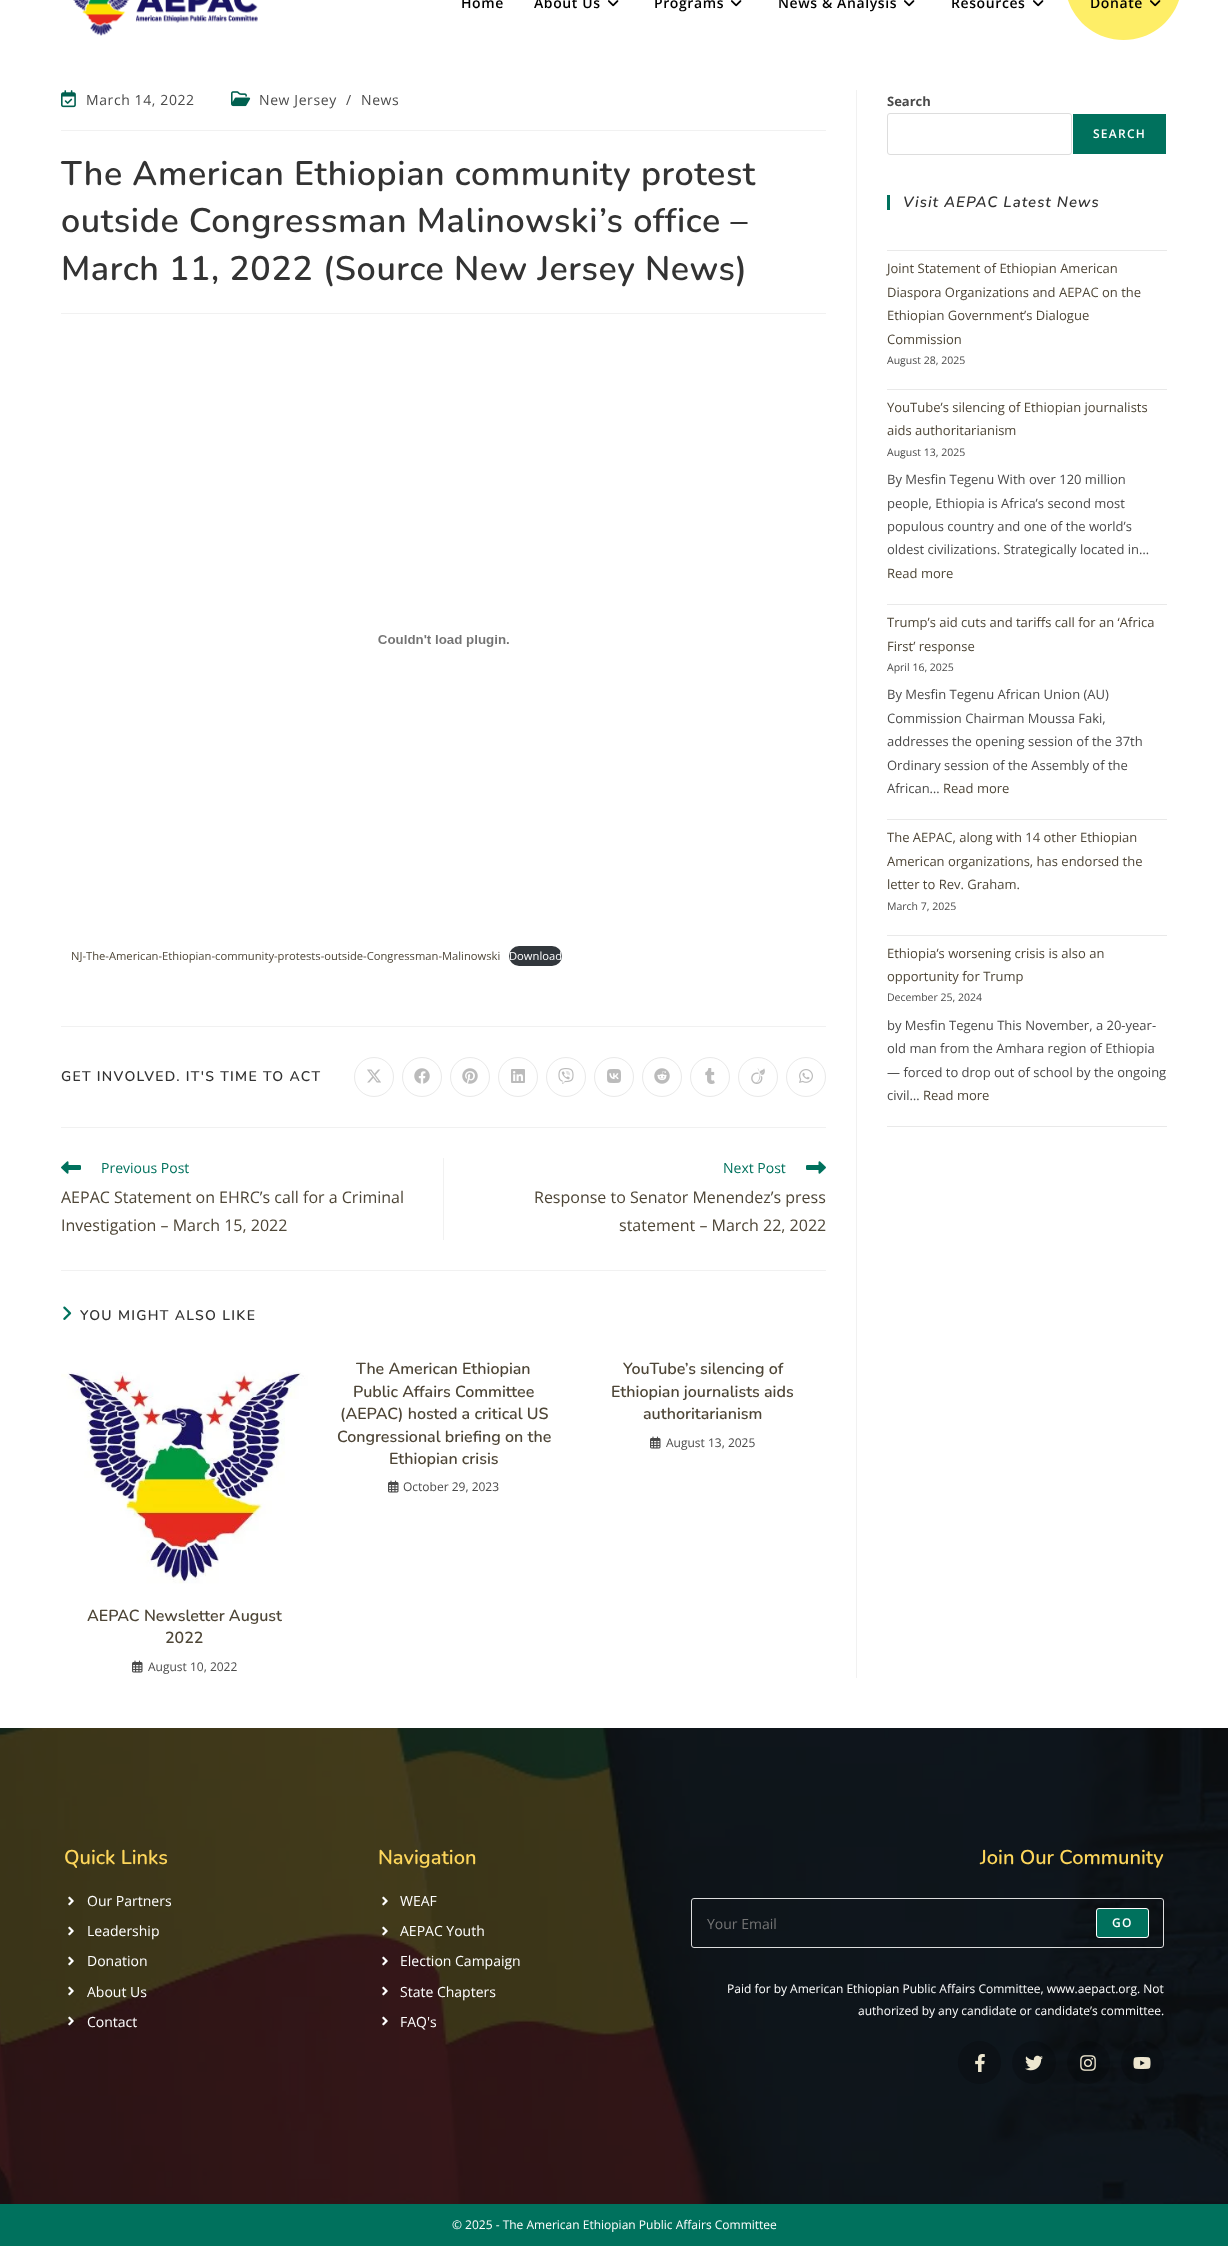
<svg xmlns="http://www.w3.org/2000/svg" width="1228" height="2246">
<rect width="100%" height="100%" fill="#fff"/>
<image x="73" y="0" width="185" height="36" href="media/1.png"/>
<text x="461" y="8" style="font-family:Open Sans;font-size:14px;font-weight:600;letter-spacing:0.6px;fill:#000">Home</text>
<text x="534" y="8" style="font-family:Open Sans;font-size:14px;font-weight:600;letter-spacing:0.6px;fill:#000">About Us</text>
<image x="608" y="0" width="11" height="7" href="media/2.png"/>
<text x="654" y="8" style="font-family:Open Sans;font-size:14px;font-weight:600;letter-spacing:0.6px;fill:#000">Programs</text>
<image x="731" y="0" width="11" height="7" href="media/2.png"/>
<text x="778" y="8" style="font-family:Open Sans;font-size:14px;font-weight:600;letter-spacing:0.6px;fill:#000">News &amp; Analysis</text>
<image x="904" y="0" width="11" height="7" href="media/2.png"/>
<text x="951" y="8" style="font-family:Open Sans;font-size:14px;font-weight:600;letter-spacing:0.6px;fill:#000">Resources</text>
<image x="1033" y="0" width="11" height="7" href="media/2.png"/>
<path d="M1065-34h117v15.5c0 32.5-26 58.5-58.5 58.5c-32.5 0-58.5-26-58.5-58.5z" fill="#feee67"/>
<text x="1090" y="8" style="font-family:Open Sans;font-size:14px;font-weight:600;letter-spacing:0.6px;fill:#000">Donate</text>
<image x="1150" y="0" width="11" height="7" href="media/3.png"/>
<rect x="856" y="90" width="1" height="1588" fill="#f1f1f1"/>
<rect x="61" y="130" width="765" height="1" fill="#f1f1f1"/>
<image x="61" y="90" width="15" height="18" href="media/4.png"/>
<text x="86" y="105" style="font-family:Open Sans;font-size:14px;letter-spacing:0.6px;fill:#4a4a4a">March 14, 2022</text>
<image x="231" y="91" width="20" height="16" href="media/5.png"/>
<text x="259" y="105" style="font-family:Open Sans;font-size:14px;letter-spacing:0.6px;fill:#4a4a4a">New Jersey</text>
<text x="346" y="105" style="font-family:Open Sans;font-size:14px;letter-spacing:0.6px;fill:#4a4a4a">/</text>
<text x="361" y="105" style="font-family:Open Sans;font-size:14px;letter-spacing:0.6px;fill:#4a4a4a">News</text>
<rect x="61" y="313" width="765" height="1" fill="#f1f1f1"/>
<text x="61" y="185" style="font-family:Nunito;font-size:34px;font-weight:600;letter-spacing:0.6px;fill:#333">The American Ethiopian community protest</text>
<text x="61" y="232" style="font-family:Nunito;font-size:34px;font-weight:600;letter-spacing:0.6px;fill:#333">outside Congressman Malinowski’s office –</text>
<text x="61" y="280" style="font-family:Nunito;font-size:34px;font-weight:600;letter-spacing:0.6px;fill:#333">March 11, 2022 (Source New Jersey News)</text>
<image x="378" y="635" width="131" height="12" href="media/6.png"/>
<text x="71" y="960" style="font-family:Open Sans;font-size:11.2px;fill:#4e4637">NJ-The-American-Ethiopian-community-protests-outside-Congressman-Malinowski</text>
<rect x="509" y="946" width="53" height="20" rx="10" fill="#32373c"/>
<text x="509" y="960" style="font-family:Open Sans;font-size:11.2px;fill:#fff">Download</text>
<rect x="61" y="1026" width="765" height="1" fill="#f1f1f1"/>
<text x="61" y="1081" style="font-family:Nunito;font-size:14px;font-weight:600;letter-spacing:1.3px;fill:#333">GET INVOLVED. IT'S TIME TO ACT</text>
<circle cx="374" cy="1077" r="19.5" fill="none" stroke="#e9e9e9"/>
<image x="367" y="1069" width="14" height="14" href="media/7.png"/>
<circle cx="422" cy="1077" r="19.5" fill="none" stroke="#e9e9e9"/>
<image x="414" y="1068" width="16" height="16" href="media/8.png"/>
<circle cx="470" cy="1077" r="19.5" fill="none" stroke="#e9e9e9"/>
<image x="462" y="1068" width="16" height="16" href="media/9.png"/>
<circle cx="518" cy="1077" r="19.5" fill="none" stroke="#e9e9e9"/>
<image x="511" y="1069" width="14" height="14" href="media/10.png"/>
<circle cx="566" cy="1077" r="19.5" fill="none" stroke="#e9e9e9"/>
<image x="558" y="1068" width="16" height="16" href="media/11.png"/>
<circle cx="614" cy="1077" r="19.5" fill="none" stroke="#e9e9e9"/>
<image x="607" y="1069" width="14" height="14" href="media/12.png"/>
<circle cx="662" cy="1077" r="19.5" fill="none" stroke="#e9e9e9"/>
<image x="654" y="1068" width="16" height="16" href="media/13.png"/>
<circle cx="710" cy="1077" r="19.5" fill="none" stroke="#e9e9e9"/>
<image x="705" y="1068" width="10" height="16" href="media/14.png"/>
<circle cx="758" cy="1077" r="19.5" fill="none" stroke="#e9e9e9"/>
<image x="751" y="1068" width="14" height="16" href="media/15.png"/>
<circle cx="806" cy="1077" r="19.5" fill="none" stroke="#e9e9e9"/>
<image x="799" y="1069" width="14" height="14" href="media/16.png"/>
<rect x="61" y="1127" width="765" height="1" fill="#f1f1f1"/>
<rect x="443" y="1158" width="1" height="82" fill="#f1f1f1"/>
<image x="61" y="1161" width="20" height="13" href="media/17.png"/>
<text x="101" y="1173" style="font-family:Open Sans;font-size:14px;fill:#00715d">Previous Post</text>
<text x="61" y="1203" style="font-family:Open Sans;font-size:16px;fill:#4e4637">AEPAC Statement on EHRC’s call for a Criminal</text>
<text x="61" y="1231" style="font-family:Open Sans;font-size:16px;fill:#4e4637">Investigation – March 15, 2022</text>
<text x="723" y="1173" style="font-family:Open Sans;font-size:14px;fill:#00715d">Next Post</text>
<image x="806" y="1161" width="20" height="13" href="media/18.png"/>
<text x="534" y="1203" style="font-family:Open Sans;font-size:16px;fill:#4e4637">Response to Senator Menendez’s press</text>
<text x="619" y="1231" style="font-family:Open Sans;font-size:16px;fill:#4e4637">statement – March 22, 2022</text>
<rect x="61" y="1270" width="765" height="1" fill="#f1f1f1"/>
<image x="63" y="1306" width="9" height="14" href="media/19.png"/>
<text x="80" y="1320" style="font-family:Nunito;font-size:14px;font-weight:600;letter-spacing:1.3px;fill:#333">YOU MIGHT ALSO LIKE</text>
<text x="356" y="1374" style="font-family:Nunito;font-size:16px;font-weight:600;fill:#4e4637">The American Ethiopian</text>
<text x="353" y="1397" style="font-family:Nunito;font-size:16px;font-weight:600;fill:#4e4637">Public Affairs Committee</text>
<text x="340" y="1419" style="font-family:Nunito;font-size:16px;font-weight:600;fill:#4e4637">(AEPAC) hosted a critical US</text>
<text x="337" y="1442" style="font-family:Nunito;font-size:16px;font-weight:600;fill:#4e4637">Congressional briefing on the</text>
<text x="389" y="1464" style="font-family:Nunito;font-size:16px;font-weight:600;fill:#4e4637">Ethiopian crisis</text>
<image x="388" y="1480" width="11" height="13" href="media/20.png"/>
<text x="403" y="1491" style="font-family:Open Sans;font-size:12px;fill:#4a4a4a">October 29, 2023</text>
<text x="623" y="1374" style="font-family:Nunito;font-size:16px;font-weight:600;fill:#4e4637">YouTube’s silencing of</text>
<text x="611" y="1397" style="font-family:Nunito;font-size:16px;font-weight:600;fill:#4e4637">Ethiopian journalists aids</text>
<text x="643" y="1419" style="font-family:Nunito;font-size:16px;font-weight:600;fill:#4e4637">authoritarianism</text>
<image x="650" y="1436" width="11" height="13" href="media/20.png"/>
<text x="666" y="1447" style="font-family:Open Sans;font-size:12px;fill:#4a4a4a">August 13, 2025</text>
<image x="61" y="1346" width="247" height="247" href="media/21.png"/>
<text x="87" y="1621" style="font-family:Nunito;font-size:16px;font-weight:600;fill:#4e4637">AEPAC Newsletter August</text>
<text x="165" y="1643" style="font-family:Nunito;font-size:16px;font-weight:600;fill:#4e4637">2022</text>
<image x="132" y="1660" width="11" height="13" href="media/20.png"/>
<text x="148" y="1671" style="font-family:Open Sans;font-size:12px;fill:#4a4a4a">August 10, 2022</text>
<text x="887" y="106" style="font-family:Open Sans;font-size:13px;font-weight:bold;fill:#4a4a4a">Search</text>
<rect x="887.5" y="113.5" width="184" height="41" rx="2.5" fill="none" stroke="#ddd"/>
<rect x="1073" y="114" width="93" height="40" fill="#00715d"/>
<text x="1093" y="138" style="font-family:Open Sans;font-size:12px;font-weight:600;letter-spacing:1.25px;fill:#fff">SEARCH</text>
<rect x="887" y="195" width="3" height="15" fill="#00715d"/>
<text x="903" y="207" style="font-family:Nunito;font-size:15px;font-weight:600;font-style:italic;letter-spacing:1px;fill:#333">Visit AEPAC Latest News</text>
<rect x="887" y="250" width="280" height="1" fill="#e9e9e9"/>
<rect x="887" y="389" width="280" height="1" fill="#e9e9e9"/>
<text x="887" y="273" style="font-family:Open Sans;font-size:13px;fill:#4e4637">Joint Statement of Ethiopian American</text>
<text x="887" y="297" style="font-family:Open Sans;font-size:13px;fill:#4e4637">Diaspora Organizations and AEPAC on the</text>
<text x="887" y="320" style="font-family:Open Sans;font-size:13px;fill:#4e4637">Ethiopian Government’s Dialogue</text>
<text x="887" y="344" style="font-family:Open Sans;font-size:13px;fill:#4e4637">Commission</text>
<text x="887" y="364" style="font-family:Open Sans;font-size:10.5px;fill:#4a4a4a">August 28, 2025</text>
<rect x="887" y="604" width="280" height="1" fill="#e9e9e9"/>
<text x="887" y="412" style="font-family:Open Sans;font-size:13px;fill:#4e4637">YouTube’s silencing of Ethiopian journalists</text>
<text x="887" y="435" style="font-family:Open Sans;font-size:13px;fill:#4e4637">aids authoritarianism</text>
<text x="887" y="456" style="font-family:Open Sans;font-size:10.5px;fill:#4a4a4a">August 13, 2025</text>
<text x="887" y="484" style="font-family:Open Sans;font-size:13px;fill:#4a4a4a">By Mesfin Tegenu With over 120 million</text>
<text x="887" y="508" style="font-family:Open Sans;font-size:13px;fill:#4a4a4a">people, Ethiopia is Africa’s second most</text>
<text x="887" y="531" style="font-family:Open Sans;font-size:13px;fill:#4a4a4a">populous country and one of the world’s</text>
<text x="887" y="554" style="font-family:Open Sans;font-size:13px;fill:#4a4a4a">oldest civilizations. Strategically located in…</text>
<text x="887" y="578" style="font-family:Open Sans;font-size:13px;fill:#4e4637">Read more</text>
<rect x="887" y="819" width="280" height="1" fill="#e9e9e9"/>
<text x="887" y="627" style="font-family:Open Sans;font-size:13px;fill:#4e4637">Trump’s aid cuts and tariffs call for an ‘Africa</text>
<text x="887" y="651" style="font-family:Open Sans;font-size:13px;fill:#4e4637">First’ response</text>
<text x="887" y="671" style="font-family:Open Sans;font-size:10.5px;fill:#4a4a4a">April 16, 2025</text>
<text x="887" y="699" style="font-family:Open Sans;font-size:13px;fill:#4a4a4a">By Mesfin Tegenu African Union (AU)</text>
<text x="887" y="723" style="font-family:Open Sans;font-size:13px;fill:#4a4a4a">Commission Chairman Moussa Faki,</text>
<text x="887" y="746" style="font-family:Open Sans;font-size:13px;fill:#4a4a4a">addresses the opening session of the 37th</text>
<text x="887" y="770" style="font-family:Open Sans;font-size:13px;fill:#4a4a4a">Ordinary session of the Assembly of the</text>
<text x="887" y="793" style="font-family:Open Sans;font-size:13px;fill:#4a4a4a">African…</text>
<text x="943" y="793" style="font-family:Open Sans;font-size:13px;fill:#4e4637">Read more</text>
<rect x="887" y="935" width="280" height="1" fill="#e9e9e9"/>
<text x="887" y="842" style="font-family:Open Sans;font-size:13px;fill:#4e4637">The AEPAC, along with 14 other Ethiopian</text>
<text x="887" y="866" style="font-family:Open Sans;font-size:13px;fill:#4e4637">American organizations, has endorsed the</text>
<text x="887" y="889" style="font-family:Open Sans;font-size:13px;fill:#4e4637">letter to Rev. Graham.</text>
<text x="887" y="910" style="font-family:Open Sans;font-size:10.5px;fill:#4a4a4a">March 7, 2025</text>
<rect x="887" y="1126" width="280" height="1" fill="#e9e9e9"/>
<text x="887" y="958" style="font-family:Open Sans;font-size:13px;fill:#4e4637">Ethiopia’s worsening crisis is also an</text>
<text x="887" y="981" style="font-family:Open Sans;font-size:13px;fill:#4e4637">opportunity for Trump</text>
<text x="887" y="1001" style="font-family:Open Sans;font-size:10.5px;fill:#4a4a4a">December 25, 2024</text>
<text x="887" y="1030" style="font-family:Open Sans;font-size:13px;fill:#4a4a4a">by Mesfin Tegenu This November, a 20-year-</text>
<text x="887" y="1053" style="font-family:Open Sans;font-size:13px;fill:#4a4a4a">old man from the Amhara region of Ethiopia</text>
<text x="887" y="1077" style="font-family:Open Sans;font-size:13px;fill:#4a4a4a">— forced to drop out of school by the ongoing</text>
<text x="887" y="1100" style="font-family:Open Sans;font-size:13px;fill:#4a4a4a">civil…</text>
<text x="923" y="1100" style="font-family:Open Sans;font-size:13px;fill:#4e4637">Read more</text>
<image x="0" y="1728" width="1228" height="476" href="media/22.png"/>
<text x="64" y="1864" style="font-family:Nunito;font-size:20px;font-weight:600;fill:#fdd65b">Quick Links</text>
<image x="68" y="1896" width="6" height="10" href="media/23.png"/>
<text x="87" y="1906" style="font-family:Open Sans;font-size:14px;fill:#fff">Our Partners</text>
<image x="68" y="1926" width="6" height="10" href="media/24.png"/>
<text x="87" y="1936" style="font-family:Open Sans;font-size:14px;fill:#fff">Leadership</text>
<image x="68" y="1956" width="6" height="10" href="media/25.png"/>
<text x="87" y="1966" style="font-family:Open Sans;font-size:14px;fill:#fff">Donation</text>
<image x="68" y="1986" width="6" height="10" href="media/26.png"/>
<text x="87" y="1997" style="font-family:Open Sans;font-size:14px;fill:#fff">About Us</text>
<image x="68" y="2016" width="6" height="10" href="media/27.png"/>
<text x="87" y="2027" style="font-family:Open Sans;font-size:14px;fill:#fff">Contact</text>
<text x="378" y="1864" style="font-family:Nunito;font-size:20px;font-weight:600;fill:#fdd65b">Navigation</text>
<image x="382" y="1896" width="6" height="10" href="media/28.png"/>
<text x="400" y="1906" style="font-family:Open Sans;font-size:14px;fill:#fff">WEAF</text>
<image x="382" y="1926" width="6" height="10" href="media/29.png"/>
<text x="400" y="1936" style="font-family:Open Sans;font-size:14px;fill:#fff">AEPAC Youth</text>
<image x="382" y="1956" width="6" height="10" href="media/30.png"/>
<text x="400" y="1966" style="font-family:Open Sans;font-size:14px;fill:#fff">Election Campaign</text>
<image x="382" y="1986" width="6" height="10" href="media/31.png"/>
<text x="400" y="1997" style="font-family:Open Sans;font-size:14px;fill:#fff">State Chapters</text>
<image x="382" y="2016" width="6" height="10" href="media/31.png"/>
<text x="400" y="2027" style="font-family:Open Sans;font-size:14px;fill:#fff">FAQ's</text>
<text x="980" y="1864" style="font-family:Nunito;font-size:20px;font-weight:600;fill:#fdd65b">Join Our Community</text>
<rect x="691.5" y="1898.5" width="472" height="49" rx="2.5" fill="none" stroke="#ddd"/>
<text x="707" y="1929" style="font-family:Open Sans;font-size:14px;fill:#757575">Your Email</text>
<rect x="1096.5" y="1908.5" width="52" height="29" rx="2.5" fill="#00715d" stroke="#fff"/>
<text x="1112" y="1927" style="font-family:Open Sans;font-size:12px;font-weight:600;letter-spacing:1.25px;fill:#fff">GO</text>
<text x="727" y="1993" style="font-family:Open Sans;font-size:12px;fill:#fff">Paid for by American Ethiopian Public Affairs Committee, www.aepact.org. Not</text>
<text x="858" y="2015" style="font-family:Open Sans;font-size:12px;fill:#fff">authorized by any candidate or candidate’s committee.</text>
<circle cx="979.5" cy="2062.5" r="21.5" fill="#0c1116"/>
<image x="975" y="2054" width="10" height="18" href="media/32.png"/>
<rect x="1012" y="2041" width="44" height="43" rx="21.5" fill="#00000030"/>
<image x="1025" y="2055" width="18" height="16" href="media/33.png"/>
<circle cx="1088.5" cy="2062.5" r="21.5" fill="#00000030"/>
<image x="1080" y="2055" width="16" height="16" href="media/34.png"/>
<circle cx="1142.5" cy="2062.5" r="21.5" fill="#00000030"/>
<image x="1133" y="2057" width="18" height="12" href="media/35.png"/>
<rect y="2204" width="1228" height="42" fill="#00715d"/>
<text x="452" y="2229" style="font-family:Open Sans;font-size:12px;fill:#fff">© 2025 - The American Ethiopian Public Affairs Committee</text>
</svg>
